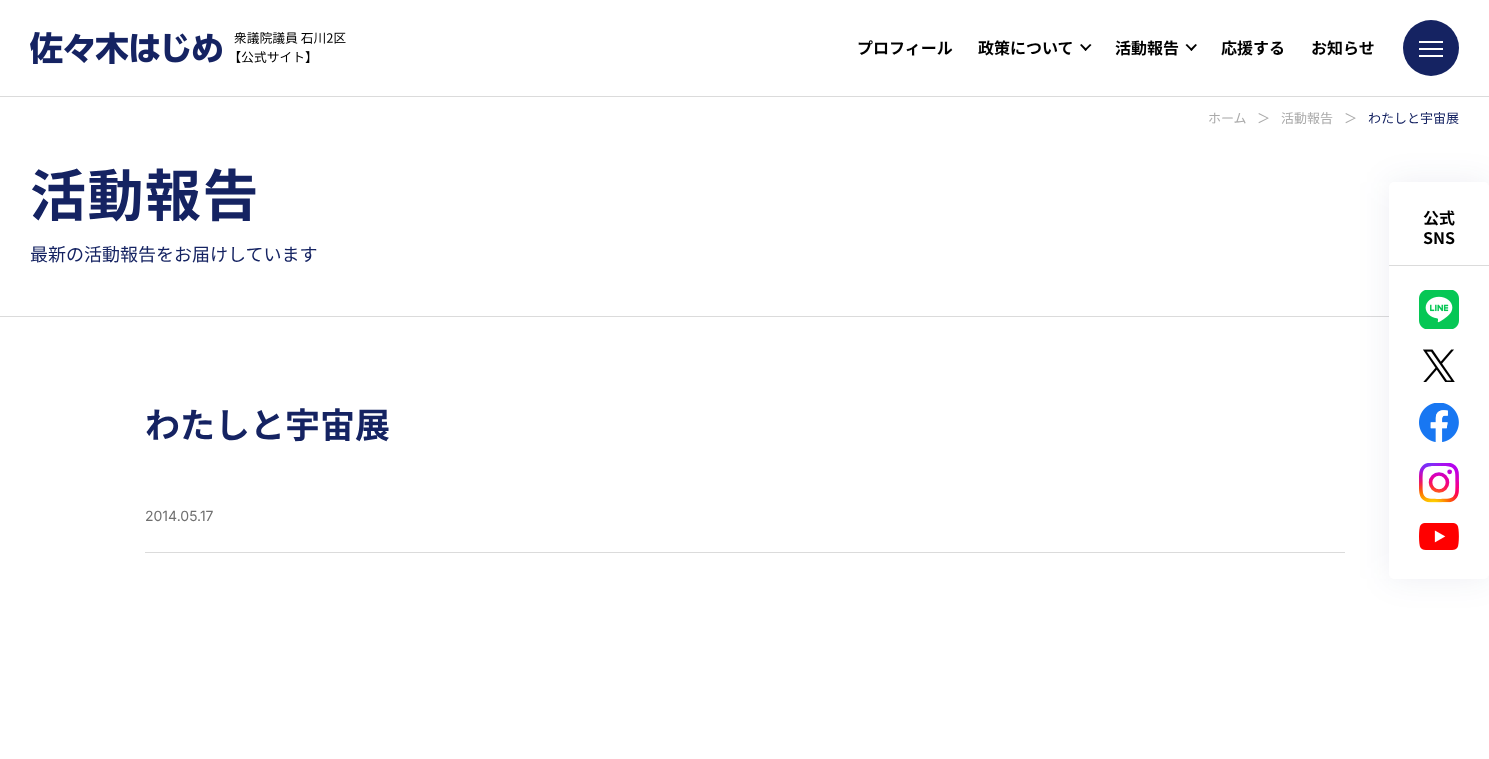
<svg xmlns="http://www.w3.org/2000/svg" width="1489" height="759">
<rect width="100%" height="100%" fill="#fff"/>
<rect y="96" width="1489" height="1" fill="#dbdbdb"/>
<image x="30" y="32" width="192" height="32" href="media/1.png"/>
<image x="234" y="32" width="112" height="31" href="media/2.png"/>
<text x="857" y="54" style="font-family:Noto Sans JP;font-size:16px;font-weight:bold;fill:#000">プロフィール</text>
<text x="978" y="54" style="font-family:Noto Sans JP;font-size:16px;font-weight:bold;fill:#000">政策について</text>
<path d="M1090 44l1.5 1l-6 6l-1-1.5z" fill="#000"/>
<path d="M1081.5 44l5.5 5.5l-1.5 1.5l-5.5-6z" fill="#000"/>
<text x="1115" y="54" style="font-family:Noto Sans JP;font-size:16px;font-weight:bold;fill:#000">活動報告</text>
<path d="M1195.5 44l1.5 1l-5.5 6l-1.5-1.5z" fill="#000"/>
<path d="M1187 44l5.5 5.5l-1 1.5l-6-6z" fill="#000"/>
<text x="1221" y="54" style="font-family:Noto Sans JP;font-size:16px;font-weight:bold;fill:#000">応援する</text>
<text x="1311" y="54" style="font-family:Noto Sans JP;font-size:16px;font-weight:bold;fill:#000">お知らせ</text>
<circle cx="1431" cy="48" r="28" fill="#152362"/>
<rect x="1419" y="41" width="24" height="2" fill="#fff"/>
<rect x="1419" y="48" width="24" height="2" fill="#fff"/>
<rect x="1419" y="55" width="24" height="2" fill="#fff"/>
<rect y="316" width="1389" height="1" fill="#dbdbdb"/>
<text x="1208" y="123" style="font-family:Noto Sans JP;font-size:13px;fill:#aaa">ホーム</text>
<text x="1257" y="123" style="font-family:Noto Sans JP;font-size:13px;fill:#aaa">＞</text>
<text x="1281" y="123" style="font-family:Noto Sans JP;font-size:13px;fill:#aaa">活動報告</text>
<text x="1344" y="123" style="font-family:Noto Sans JP;font-size:13px;fill:#aaa">＞</text>
<text x="1368" y="123" style="font-family:Noto Sans JP;font-size:13px;fill:#152362">わたしと宇宙展</text>
<text x="30" y="216" style="font-family:Noto Sans JP;font-size:56px;font-weight:bold;letter-spacing:1.5px;fill:#152362">活動報告</text>
<text x="30" y="261" style="font-family:Noto Sans JP;font-size:18px;fill:#152362">最新の活動報告をお届けしています</text>
<text x="145" y="438" style="font-family:Noto Sans JP;font-size:35px;font-weight:bold;fill:#152362">わたしと宇宙展</text>
<rect x="145" y="552" width="1200" height="1" fill="#dbdbdb"/>
<text x="145" y="521" style="font-family:Inter;font-size:14px;fill:#707070">2014.05.17</text>
<rect x="1389" y="182" width="100" height="397" rx="5" fill="#15236214" filter="blur(16px)"/>
<rect x="1389" y="182" width="100" height="397" rx="5" fill="#fff"/>
<rect x="1389" y="265" width="100" height="1" fill="#dbdbdb"/>
<text x="1423" y="224" style="font-family:Noto Sans JP;font-size:16px;font-weight:bold;fill:#000">公式</text>
<text x="1423" y="244" style="font-family:Noto Sans JP;font-size:16px;font-weight:bold;fill:#000">SNS</text>
<image x="1419" y="290" width="40" height="39" href="media/3.png"/>
<image x="1423" y="349" width="32" height="33" href="media/4.png"/>
<image x="1419" y="403" width="40" height="39" href="media/5.png"/>
<image x="1419" y="463" width="40" height="40" href="media/6.png"/>
<image x="1419" y="523" width="40" height="27" href="media/7.png"/>
</svg>
